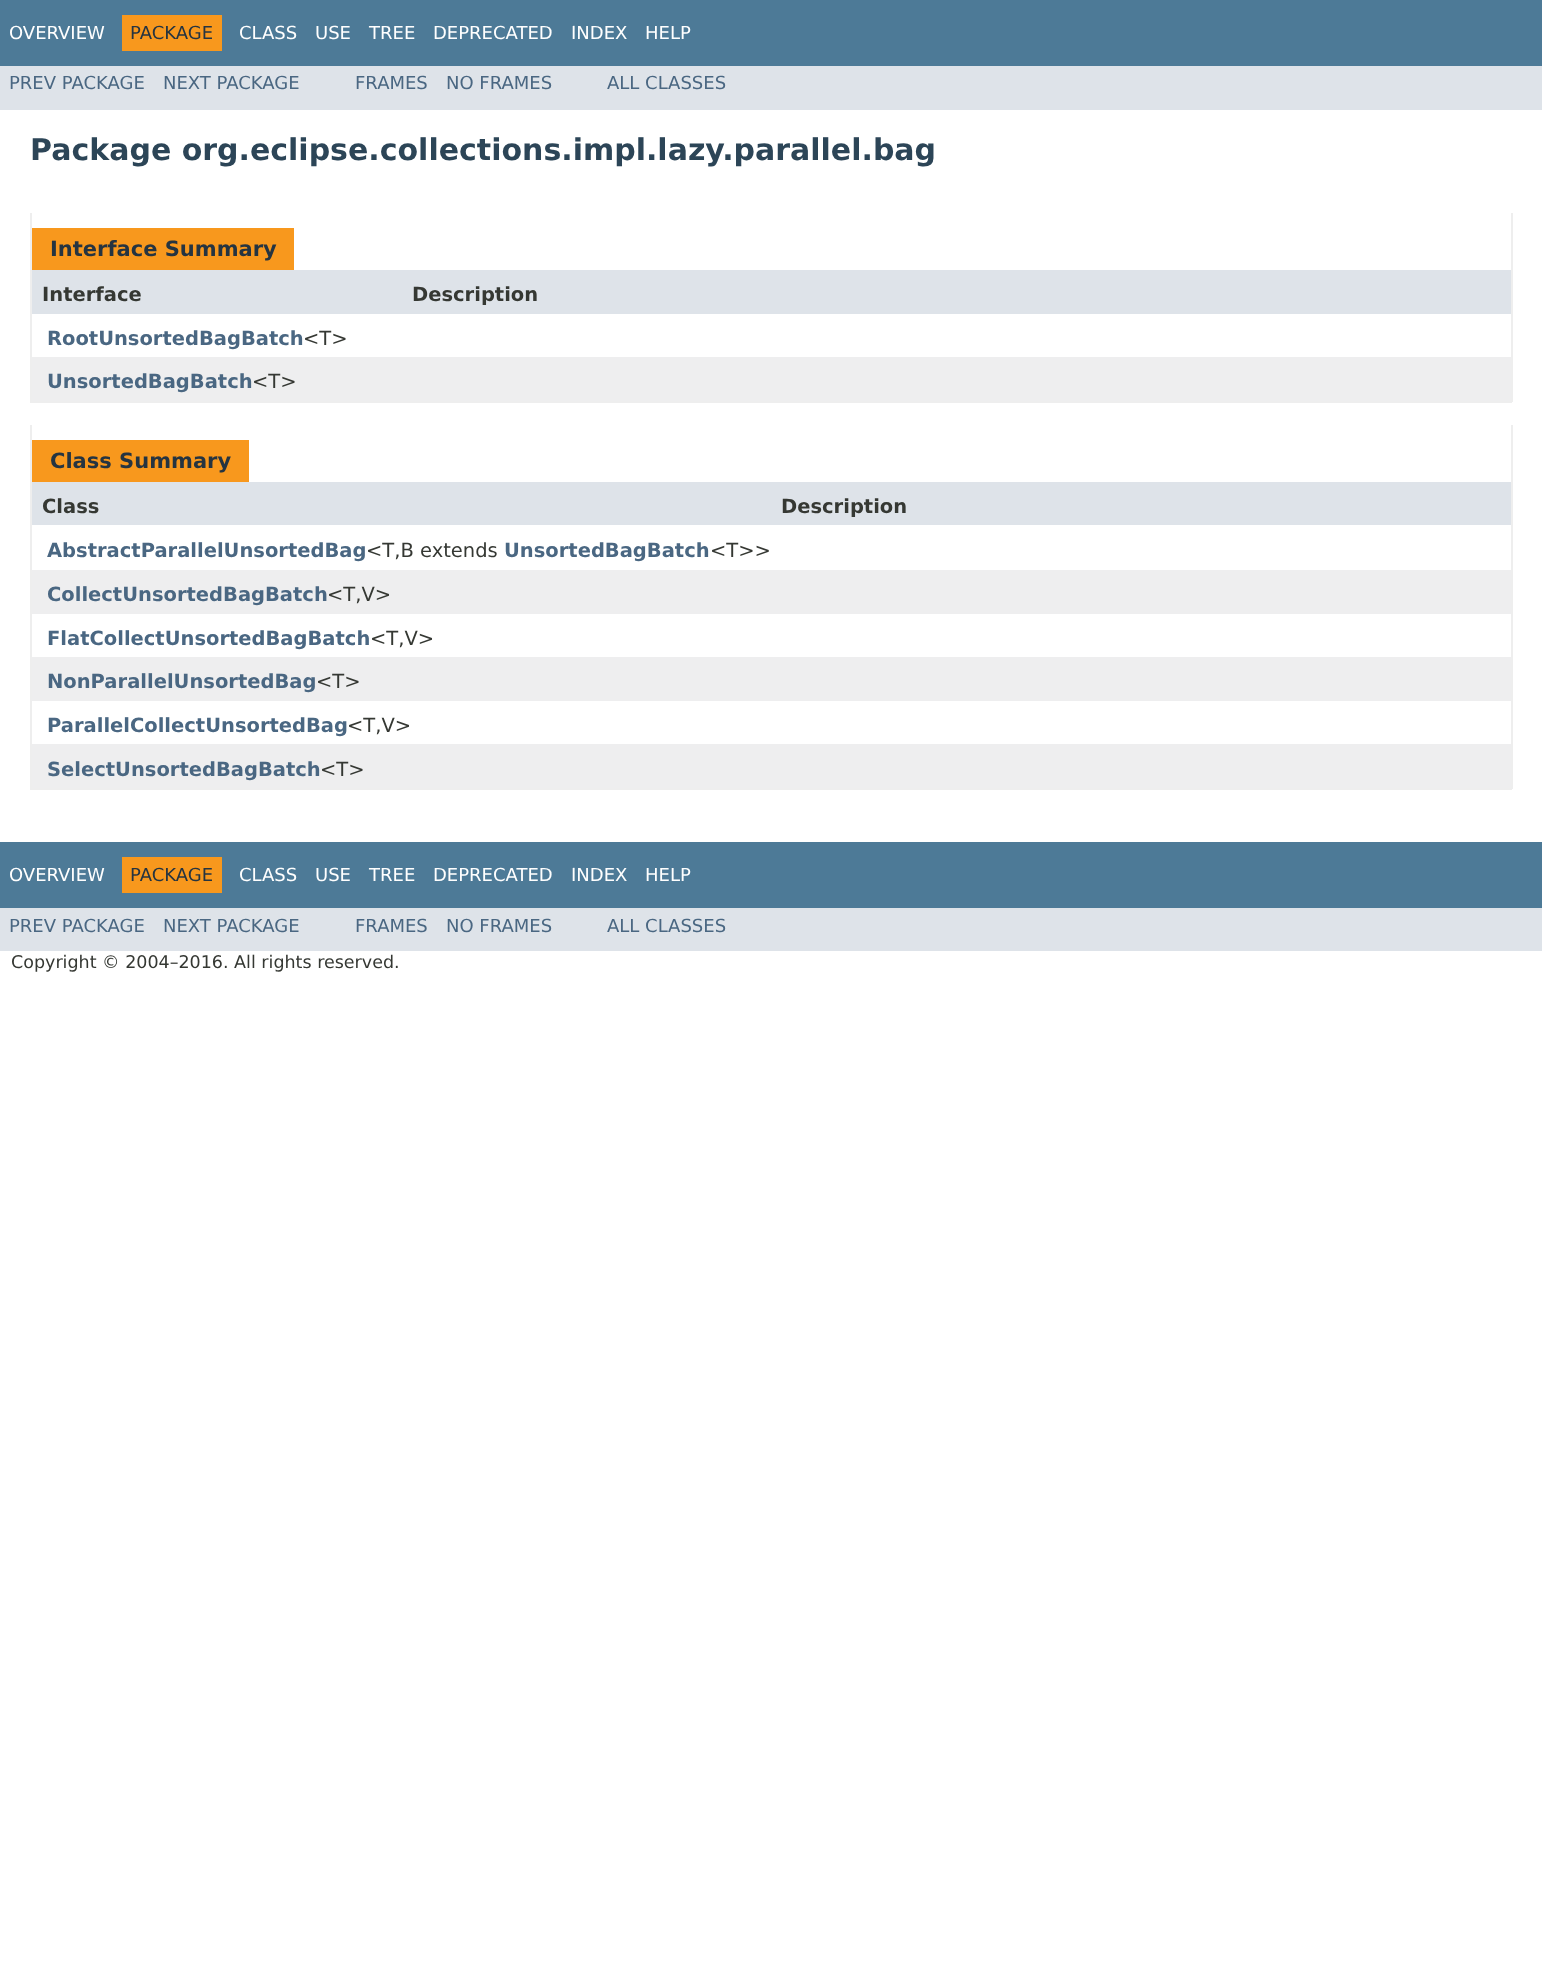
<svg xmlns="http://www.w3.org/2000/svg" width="1542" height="1967">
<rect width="100%" height="100%" fill="#fff"/>
<rect width="1542" height="66" fill="#4d7a97"/>
<text x="9" y="39" style="font-family:DejaVu Sans;font-size:18px;fill:#fff">OVERVIEW</text>
<rect x="122" y="15" width="100" height="36" fill="#f8981d"/>
<text x="130" y="39" style="font-family:DejaVu Sans;font-size:18px;fill:#253441">PACKAGE</text>
<text x="239" y="39" style="font-family:DejaVu Sans;font-size:18px;fill:#fff">CLASS</text>
<text x="315" y="39" style="font-family:DejaVu Sans;font-size:18px;fill:#fff">USE</text>
<text x="369" y="39" style="font-family:DejaVu Sans;font-size:18px;fill:#fff">TREE</text>
<text x="433" y="39" style="font-family:DejaVu Sans;font-size:18px;fill:#fff">DEPRECATED</text>
<text x="571" y="39" style="font-family:DejaVu Sans;font-size:18px;fill:#fff">INDEX</text>
<text x="645" y="39" style="font-family:DejaVu Sans;font-size:18px;fill:#fff">HELP</text>
<rect y="66" width="1542" height="44" fill="#dee3e9"/>
<text x="9" y="89" style="font-family:DejaVu Sans;font-size:18px;fill:#4a6782">PREV PACKAGE</text>
<text x="163" y="89" style="font-family:DejaVu Sans;font-size:18px;fill:#4a6782">NEXT PACKAGE</text>
<text x="355" y="89" style="font-family:DejaVu Sans;font-size:18px;fill:#4a6782">FRAMES</text>
<text x="446" y="89" style="font-family:DejaVu Sans;font-size:18px;fill:#4a6782">NO FRAMES</text>
<text x="607" y="89" style="font-family:DejaVu Sans;font-size:18px;fill:#4a6782">ALL CLASSES</text>
<text x="30" y="160" style="font-family:DejaVu Sans;font-size:30px;font-weight:bold;fill:#2c4557">Package org.eclipse.collections.impl.lazy.parallel.bag</text>
<rect x="1511" y="213" width="2" height="189" fill="#eee"/>
<rect x="30" y="401" width="1482" height="2" fill="#eee"/>
<rect x="30" y="213" width="2" height="189" fill="#eee"/>
<rect x="32" y="228" width="262" height="42" fill="#f8981d"/>
<text x="50" y="256" style="font-family:DejaVu Sans;font-size:21px;font-weight:bold;fill:#253441">Interface Summary</text>
<rect x="32" y="270" width="1479" height="44" fill="#dee3e9"/>
<text x="42" y="301" style="font-family:DejaVu Sans;font-size:19.5px;font-weight:bold;fill:#353833">Interface</text>
<text x="412" y="301" style="font-family:DejaVu Sans;font-size:19.5px;font-weight:bold;fill:#353833">Description</text>
<text x="47" y="345" style="font-family:DejaVu Sans;font-size:19.5px;font-weight:bold;fill:#4a6782">RootUnsortedBagBatch</text>
<text x="303" y="345" style="font-family:DejaVu Sans;font-size:19.5px;fill:#353833">&lt;T&gt;</text>
<rect x="32" y="357" width="1479" height="44" fill="#eeeeef"/>
<text x="47" y="388" style="font-family:DejaVu Sans;font-size:19.5px;font-weight:bold;fill:#4a6782">UnsortedBagBatch</text>
<text x="252" y="388" style="font-family:DejaVu Sans;font-size:19.5px;fill:#353833">&lt;T&gt;</text>
<rect x="1511" y="425" width="2" height="364" fill="#eee"/>
<rect x="30" y="788" width="1482" height="2" fill="#eee"/>
<rect x="30" y="425" width="2" height="364" fill="#eee"/>
<rect x="32" y="440" width="217" height="42" fill="#f8981d"/>
<text x="50" y="468" style="font-family:DejaVu Sans;font-size:21px;font-weight:bold;fill:#253441">Class Summary</text>
<rect x="32" y="482" width="1479" height="43" fill="#dee3e9"/>
<text x="42" y="513" style="font-family:DejaVu Sans;font-size:19.5px;font-weight:bold;fill:#353833">Class</text>
<text x="781" y="513" style="font-family:DejaVu Sans;font-size:19.5px;font-weight:bold;fill:#353833">Description</text>
<text x="47" y="557" style="font-family:DejaVu Sans;font-size:19.5px;font-weight:bold;fill:#4a6782">AbstractParallelUnsortedBag</text>
<text x="366" y="557" style="font-family:DejaVu Sans;font-size:19.5px;fill:#353833">&lt;T,B extends</text>
<text x="504" y="557" style="font-family:DejaVu Sans;font-size:19.5px;font-weight:bold;fill:#4a6782">UnsortedBagBatch</text>
<text x="710" y="557" style="font-family:DejaVu Sans;font-size:19.5px;fill:#353833">&lt;T&gt;&gt;</text>
<rect x="32" y="570" width="1479" height="44" fill="#eeeeef"/>
<text x="47" y="601" style="font-family:DejaVu Sans;font-size:19.5px;font-weight:bold;fill:#4a6782">CollectUnsortedBagBatch</text>
<text x="327" y="601" style="font-family:DejaVu Sans;font-size:19.5px;fill:#353833">&lt;T,V&gt;</text>
<text x="47" y="645" style="font-family:DejaVu Sans;font-size:19.5px;font-weight:bold;fill:#4a6782">FlatCollectUnsortedBagBatch</text>
<text x="370" y="645" style="font-family:DejaVu Sans;font-size:19.5px;fill:#353833">&lt;T,V&gt;</text>
<rect x="32" y="657" width="1479" height="44" fill="#eeeeef"/>
<text x="47" y="688" style="font-family:DejaVu Sans;font-size:19.5px;font-weight:bold;fill:#4a6782">NonParallelUnsortedBag</text>
<text x="316" y="688" style="font-family:DejaVu Sans;font-size:19.5px;fill:#353833">&lt;T&gt;</text>
<text x="47" y="732" style="font-family:DejaVu Sans;font-size:19.5px;font-weight:bold;fill:#4a6782">ParallelCollectUnsortedBag</text>
<text x="347" y="732" style="font-family:DejaVu Sans;font-size:19.5px;fill:#353833">&lt;T,V&gt;</text>
<rect x="32" y="744" width="1479" height="44" fill="#eeeeef"/>
<text x="47" y="776" style="font-family:DejaVu Sans;font-size:19.5px;font-weight:bold;fill:#4a6782">SelectUnsortedBagBatch</text>
<text x="320" y="776" style="font-family:DejaVu Sans;font-size:19.5px;fill:#353833">&lt;T&gt;</text>
<rect y="842" width="1542" height="66" fill="#4d7a97"/>
<text x="9" y="881" style="font-family:DejaVu Sans;font-size:18px;fill:#fff">OVERVIEW</text>
<rect x="122" y="857" width="100" height="36" fill="#f8981d"/>
<text x="130" y="881" style="font-family:DejaVu Sans;font-size:18px;fill:#253441">PACKAGE</text>
<text x="239" y="881" style="font-family:DejaVu Sans;font-size:18px;fill:#fff">CLASS</text>
<text x="315" y="881" style="font-family:DejaVu Sans;font-size:18px;fill:#fff">USE</text>
<text x="369" y="881" style="font-family:DejaVu Sans;font-size:18px;fill:#fff">TREE</text>
<text x="433" y="881" style="font-family:DejaVu Sans;font-size:18px;fill:#fff">DEPRECATED</text>
<text x="571" y="881" style="font-family:DejaVu Sans;font-size:18px;fill:#fff">INDEX</text>
<text x="645" y="881" style="font-family:DejaVu Sans;font-size:18px;fill:#fff">HELP</text>
<rect y="908" width="1542" height="43" fill="#dee3e9"/>
<text x="9" y="932" style="font-family:DejaVu Sans;font-size:18px;fill:#4a6782">PREV PACKAGE</text>
<text x="163" y="932" style="font-family:DejaVu Sans;font-size:18px;fill:#4a6782">NEXT PACKAGE</text>
<text x="355" y="932" style="font-family:DejaVu Sans;font-size:18px;fill:#4a6782">FRAMES</text>
<text x="446" y="932" style="font-family:DejaVu Sans;font-size:18px;fill:#4a6782">NO FRAMES</text>
<text x="607" y="932" style="font-family:DejaVu Sans;font-size:18px;fill:#4a6782">ALL CLASSES</text>
<text x="11" y="968" style="font-family:DejaVu Sans;font-size:17.5px;fill:#353833">Copyright © 2004–2016. All rights reserved.</text>
</svg>
